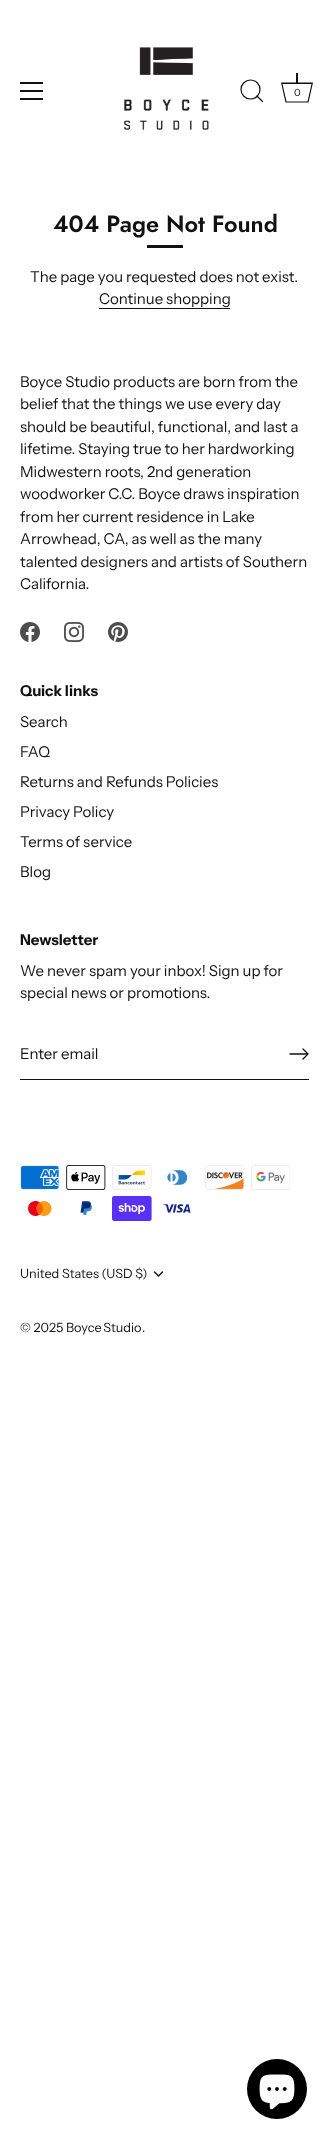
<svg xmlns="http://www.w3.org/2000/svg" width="329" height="2140">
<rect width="100%" height="100%" fill="#fff"/>
<rect x="20" y="82" width="23" height="2" fill="#111"/>
<rect x="20" y="90" width="23" height="2" fill="#111"/>
<rect x="20" y="98" width="23" height="2" fill="#111"/>
<image x="124" y="47" width="85" height="83" href="media/1.png"/>
<circle cx="250.5" cy="89.5" r="9.5" fill="none" stroke="#111" stroke-width="1.2"/>
<path d="M262.5 101.5l-5.5-5.5" fill="none" stroke="#111" stroke-width="1.2" stroke-linecap="round" stroke-linejoin="round"/>
<path d="M311.5 84l-4 17.5h-21l-4-17.5h29m1.5-1.5h-32l4.5 20h23z" fill="#111"/>
<rect x="296" y="73" width="2" height="10" fill="#111"/>
<text x="294" y="96" style="font-family:Instrument Sans;font-size:10px;fill:#111">0</text>
<text x="53" y="232" style="font-family:Jost;font-size:23.5px;font-weight:600;fill:#111">404 Page Not Found</text>
<rect x="147" y="245" width="36" height="3" fill="#111"/>
<text x="30" y="282" style="font-family:Instrument Sans;font-size:15px;fill:#111">The page you requested does not exist.</text>
<text x="99" y="304" style="font-family:Instrument Sans;font-size:15px;fill:#111">Continue shopping</text>
<rect x="99" y="308" width="131" height="1" fill="#111"/>
<text x="20" y="387" style="font-family:Instrument Sans;font-size:15px;fill:#111">Boyce Studio products are born from the</text>
<text x="20" y="409" style="font-family:Instrument Sans;font-size:15px;fill:#111">belief that the things we use every day</text>
<text x="20" y="432" style="font-family:Instrument Sans;font-size:15px;fill:#111">should be beautiful, functional, and last a</text>
<text x="20" y="454" style="font-family:Instrument Sans;font-size:15px;fill:#111">lifetime. Staying true to her hardworking</text>
<text x="20" y="477" style="font-family:Instrument Sans;font-size:15px;fill:#111">Midwestern roots, 2nd generation</text>
<text x="20" y="499" style="font-family:Instrument Sans;font-size:15px;fill:#111">woodworker C.C. Boyce draws inspiration</text>
<text x="20" y="522" style="font-family:Instrument Sans;font-size:15px;fill:#111">from her current residence in Lake</text>
<text x="20" y="544" style="font-family:Instrument Sans;font-size:15px;fill:#111">Arrowhead, CA, as well as the many</text>
<text x="20" y="567" style="font-family:Instrument Sans;font-size:15px;fill:#111">talented designers and artists of Southern</text>
<text x="20" y="589" style="font-family:Instrument Sans;font-size:15px;fill:#111">California.</text>
<image x="20" y="622" width="20" height="20" href="media/2.png"/>
<image x="64" y="622" width="20" height="20" href="media/3.png"/>
<image x="108" y="622" width="20" height="20" href="media/4.png"/>
<text x="20" y="696" style="font-family:Instrument Sans;font-size:15px;font-weight:bold;fill:#111">Quick links</text>
<text x="20" y="727" style="font-family:Instrument Sans;font-size:15px;fill:#111">Search</text>
<text x="20" y="757" style="font-family:Instrument Sans;font-size:15px;fill:#111">FAQ</text>
<text x="20" y="787" style="font-family:Instrument Sans;font-size:15px;fill:#111">Returns and Refunds Policies</text>
<text x="20" y="817" style="font-family:Instrument Sans;font-size:15px;fill:#111">Privacy Policy</text>
<text x="20" y="847" style="font-family:Instrument Sans;font-size:15px;fill:#111">Terms of service</text>
<text x="20" y="877" style="font-family:Instrument Sans;font-size:15px;fill:#111">Blog</text>
<text x="20" y="945" style="font-family:Instrument Sans;font-size:15px;font-weight:bold;fill:#111">Newsletter</text>
<text x="20" y="976" style="font-family:Instrument Sans;font-size:15px;fill:#111">We never spam your inbox! Sign up for</text>
<text x="20" y="998" style="font-family:Instrument Sans;font-size:15px;fill:#111">special news or promotions.</text>
<rect x="20" y="1079" width="289" height="1" fill="#111"/>
<text x="20" y="1059" style="font-family:Instrument Sans;font-size:15px;fill:#111">Enter email</text>
<path d="M303 1059l5-5l-5-5" fill="none" stroke="#111" stroke-width="1.3" stroke-linecap="round"/>
<path d="M307 1054h-17" fill="none" stroke="#111" stroke-width="1.3" stroke-linecap="round" stroke-linejoin="round"/>
<image x="20" y="1165" width="40" height="25" href="media/5.png"/>
<image x="66" y="1165" width="40" height="25" href="media/6.png"/>
<image x="112" y="1165" width="40" height="25" href="media/7.png"/>
<image x="167" y="1170" width="21" height="15" href="media/8.png"/>
<image x="205" y="1165" width="39" height="25" href="media/9.png"/>
<image x="251" y="1165" width="39" height="25" href="media/10.png"/>
<image x="28" y="1201" width="24" height="15" href="media/11.png"/>
<image x="80" y="1201" width="12" height="14" href="media/12.png"/>
<image x="112" y="1196" width="40" height="25" href="media/13.png"/>
<image x="163" y="1204" width="28" height="9" href="media/14.png"/>
<text x="20" y="1278" style="font-family:Instrument Sans;font-size:12.75px;fill:#111">United States (USD $)</text>
<path d="M154.5 1272l4 4l4-4" fill="none" stroke="#111" stroke-width="1.4" stroke-linecap="round"/>
<text x="20" y="1332" style="font-family:Instrument Sans;font-size:12.75px;fill:#111">© 2025</text>
<text x="66" y="1332" word-spacing="-1" style="font-family:Instrument Sans;font-size:12.75px;fill:#111">Boyce Studio</text>
<text x="142" y="1332" style="font-family:Instrument Sans;font-size:12.75px;fill:#111">.</text>
<circle cx="277" cy="2089" r="30" fill="#000"/>
<image x="259" y="2074" width="36" height="36" href="media/15.png"/>
</svg>
